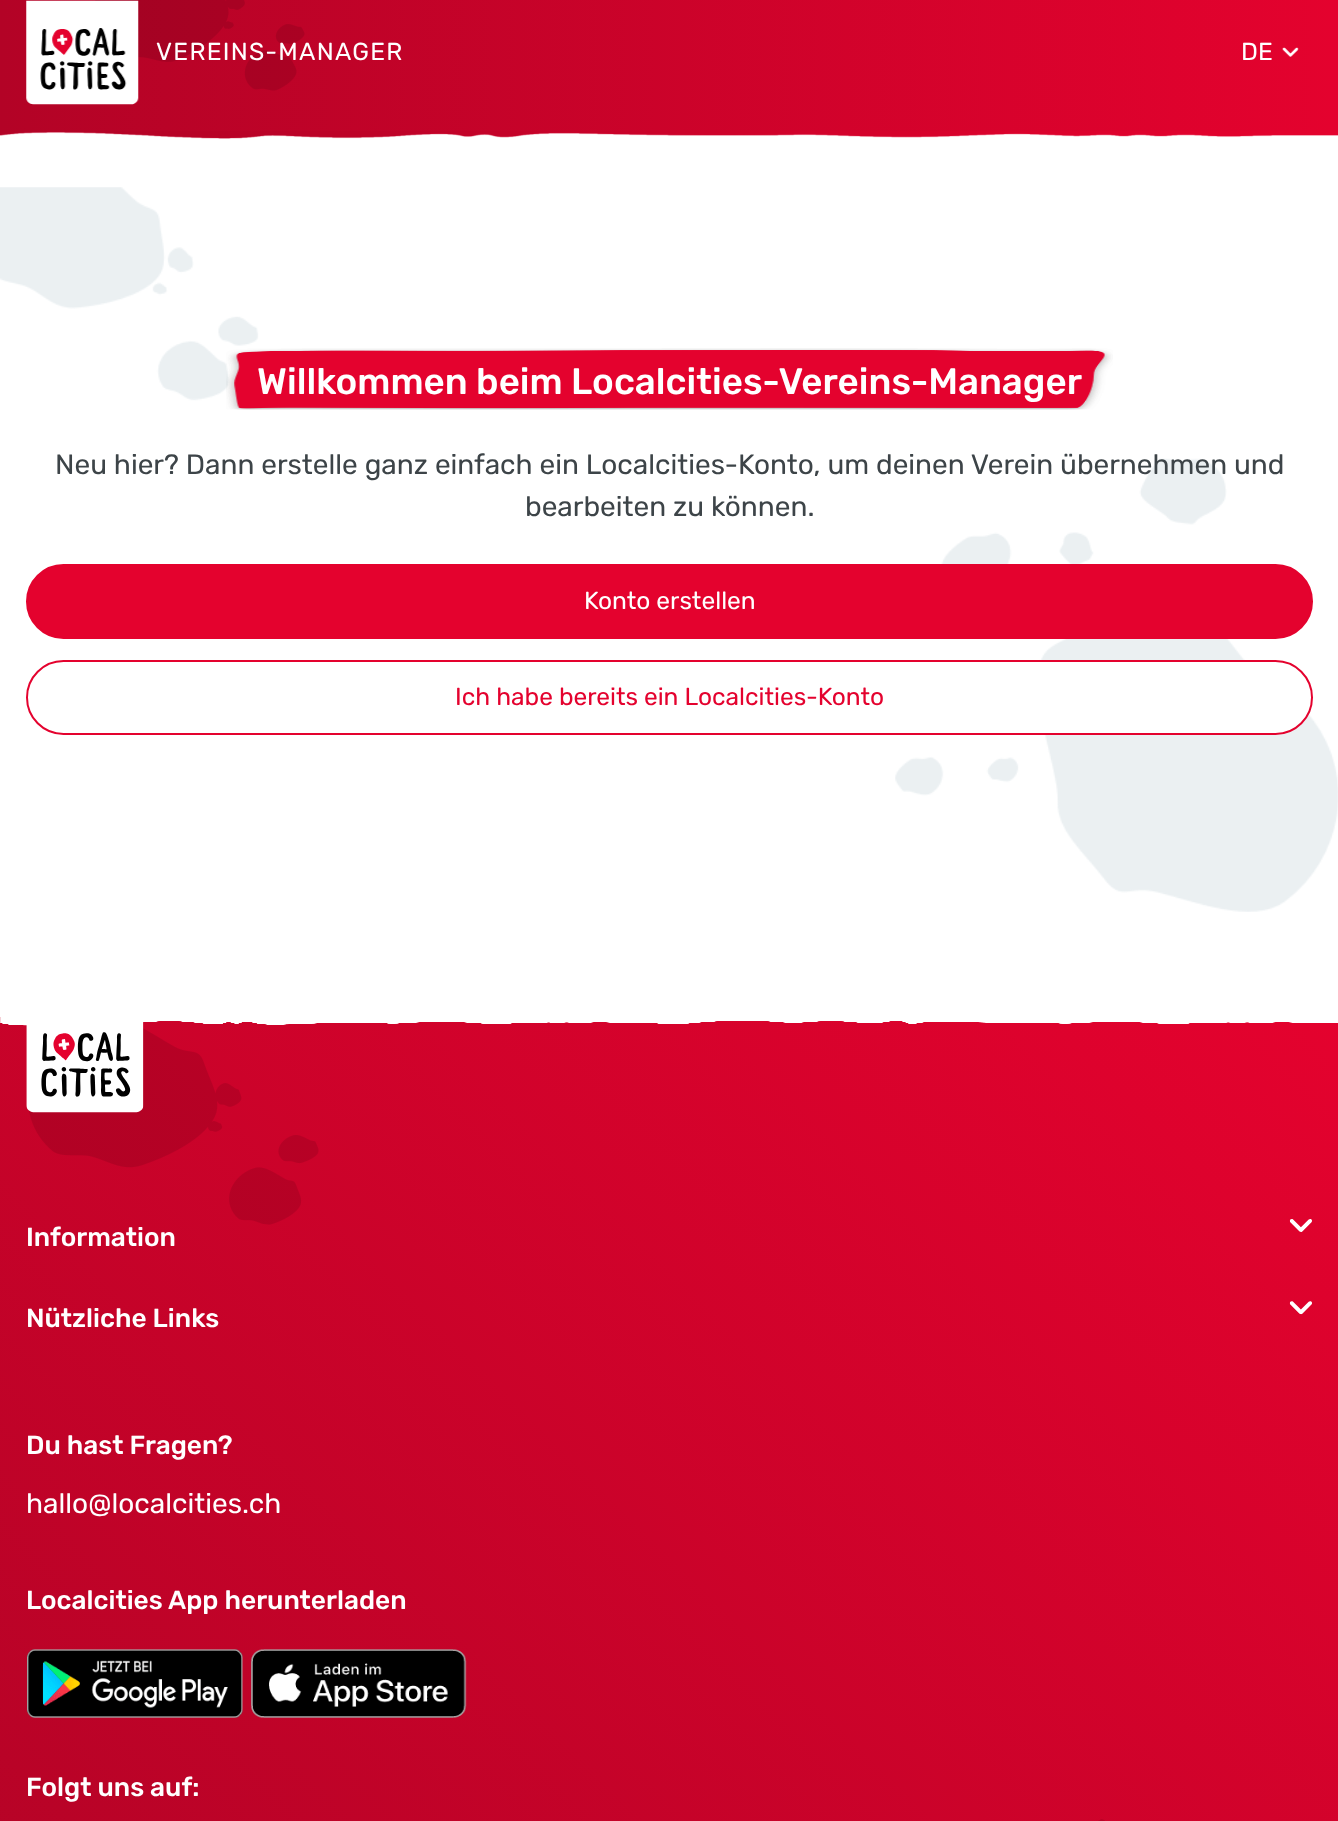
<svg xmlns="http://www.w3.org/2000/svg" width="1338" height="1821">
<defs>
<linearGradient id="g1" gradientUnits="userSpaceOnUse" x1="0" y1="66" x2="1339" y2="66"><stop offset="0" stop-color="#b30326"/><stop offset="1" stop-color="#e4022e"/></linearGradient>
<linearGradient id="g2" gradientUnits="userSpaceOnUse" x1="78" y1="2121" x2="1260" y2="938"><stop offset="0" stop-color="#b30326"/><stop offset="1" stop-color="#e4022e"/></linearGradient>
</defs>
<rect width="100%" height="100%" fill="#fff"/>
<rect width="1338" height="131" fill="url(#g1)"/>
<image x="95" y="0" width="210" height="91" href="media/1.png"/>
<image x="26" y="0" width="113" height="105" href="media/2.png"/>
<text x="156" y="60" style="font-family:Rubik;font-size:24.5px;letter-spacing:1.25px;fill:#fff">VEREINS-MANAGER</text>
<text x="1241" y="60" style="font-family:Rubik;font-size:24.5px;fill:#fff">DE</text>
<image x="1282" y="47" width="17" height="10" href="media/3.png"/>
<image x="0" y="131" width="1338" height="8" href="media/4.png"/>
<image x="0" y="187" width="1338" height="725" href="media/5.png"/>
<image x="226" y="348" width="887" height="62" href="media/6.png"/>
<text x="257" y="394" style="font-family:Rubik;font-size:36.75px;font-weight:500;fill:#fff">Willkommen beim Localcities-Vereins-Manager</text>
<text x="55" y="474" style="font-family:Rubik;font-size:28px;fill:#3d4448">Neu hier? Dann erstelle ganz einfach ein Localcities-Konto, um deinen Verein übernehmen und</text>
<text x="525" y="516" style="font-family:Rubik;font-size:28px;fill:#3d4448">bearbeiten zu können.</text>
<rect x="27" y="565" width="1285" height="73" rx="36.5" fill="#e4022e" stroke="#e4022e" stroke-width="2"/>
<text x="584" y="609" style="font-family:Rubik;font-size:24.5px;fill:#fff">Konto erstellen</text>
<rect x="27" y="661" width="1285" height="73" rx="36.5" fill="#fff" stroke="#e4022e" stroke-width="2"/>
<text x="455" y="705" style="font-family:Rubik;font-size:24.5px;fill:#e4022e">Ich habe bereits ein Localcities-Konto</text>
<rect y="1017" width="1338" height="804" fill="url(#g2)"/>
<image x="0" y="1017" width="1338" height="9" href="media/7.png"/>
<image x="29" y="1028" width="290" height="197" href="media/9.png"/>
<image x="26" y="1016" width="118" height="97" href="media/8.png"/>
<text x="26" y="1246" style="font-family:Rubik;font-size:26.25px;font-weight:500;fill:#fff">Information</text>
<image x="1289" y="1219" width="23" height="13" href="media/10.png"/>
<text x="26" y="1327" style="font-family:Rubik;font-size:26.25px;font-weight:500;fill:#fff">Nützliche Links</text>
<image x="1289" y="1301" width="23" height="14" href="media/11.png"/>
<text x="26" y="1454" style="font-family:Rubik;font-size:26.25px;font-weight:500;fill:#fff">Du hast Fragen?</text>
<text x="26" y="1513" style="font-family:Rubik;font-size:28px;fill:#fff">hallo@localcities.ch</text>
<text x="26" y="1609" style="font-family:Rubik;font-size:26.25px;font-weight:500;fill:#fff">Localcities App herunterladen</text>
<image x="27" y="1649" width="216" height="69" href="media/12.png"/>
<image x="251" y="1649" width="216" height="69" href="media/13.png"/>
<text x="26" y="1796" style="font-family:Rubik;font-size:26.25px;font-weight:500;fill:#fff">Folgt uns auf:</text>
<image x="1098" y="1819" width="7" height="2" href="media/14.png"/>
</svg>
